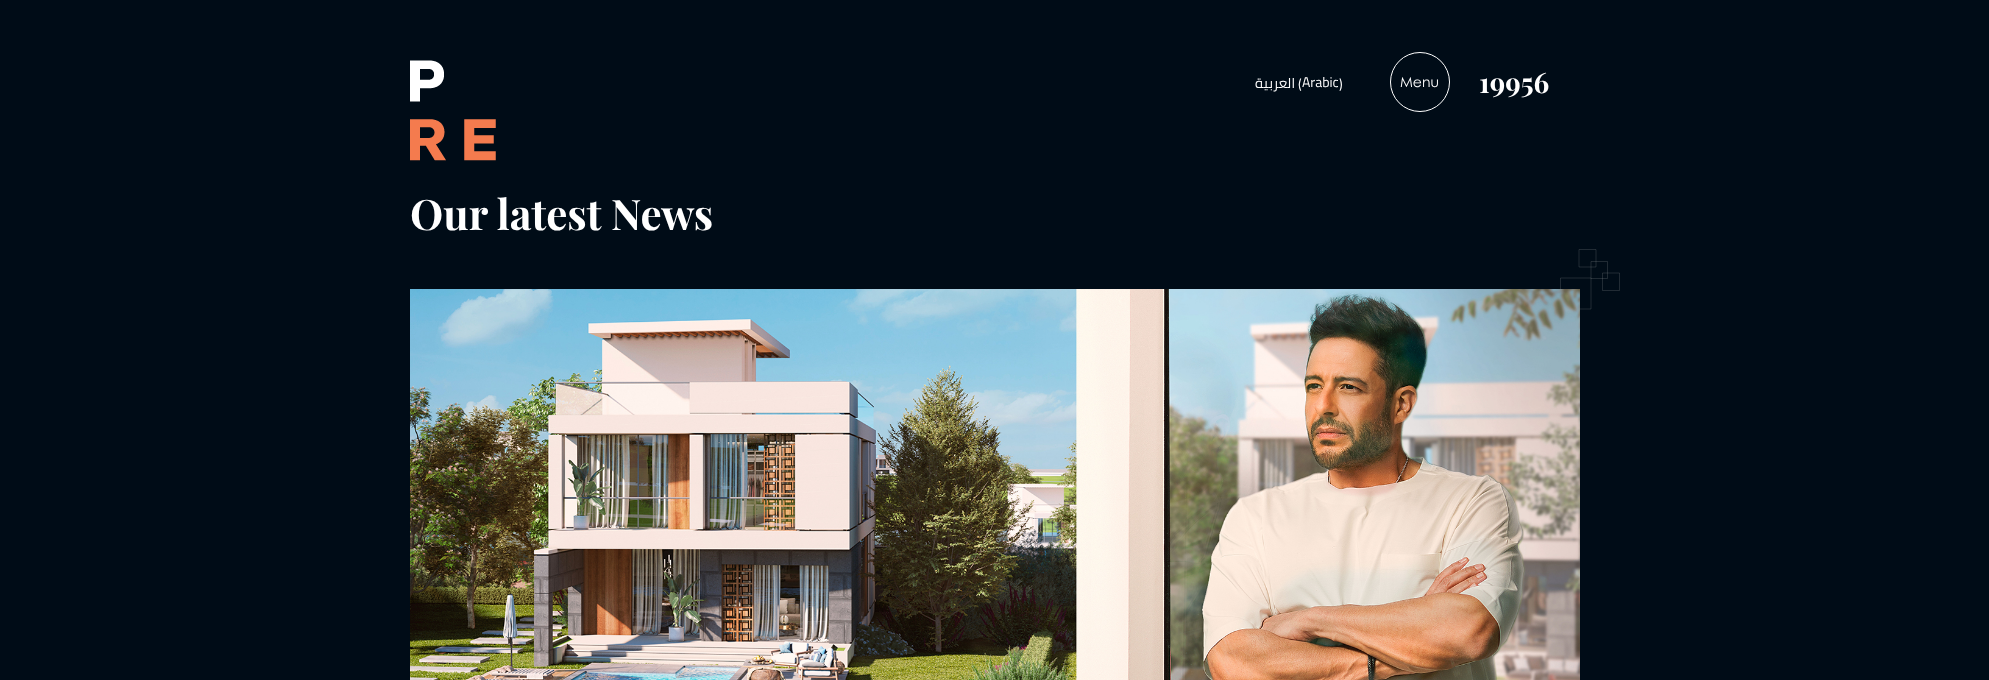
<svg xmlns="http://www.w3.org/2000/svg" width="1989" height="680">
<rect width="100%" height="100%" fill="#000c17"/>
<image x="410" y="60" width="86" height="101" href="media/1.png"/>
<text x="1295" y="88" style="font-family:Cairo;font-size:14px;direction:rtl;fill:#fff">العربية</text>
<text x="1298" y="89" style="font-family:Cairo;font-size:14px;fill:#fff">(</text>
<text x="1302" y="87" style="font-family:Cairo;font-size:14px;fill:#fff">Arabic</text>
<text x="1339" y="89" style="font-family:Cairo;font-size:14px;fill:#fff">)</text>
<circle cx="1420" cy="82" r="29.5" fill="none" stroke="#fff"/>
<text x="1400" y="87" style="font-family:Century Gothic;font-size:14px;fill:#fff">Menu</text>
<text x="1479" y="93" style="font-family:Playfair Display;font-size:28px;font-weight:bold;fill:#fff">19956</text>
<text x="410" y="230" style="font-family:Playfair Display;font-size:42px;font-weight:bold;fill:#fff">Our latest News</text>
<path d="M1607.5 278v-16.5h-16.5v16.5zm-16.5 30.5v-30.5h-30.5v30.5zm5-42v-17h-17v17zm23.5 23.5v-17h-17v17z" fill="none" stroke="#a6abaf" stroke-width="0.2" stroke-linecap="square"/>
<image x="410" y="289" width="1170" height="391" href="media/2.png"/>
</svg>
